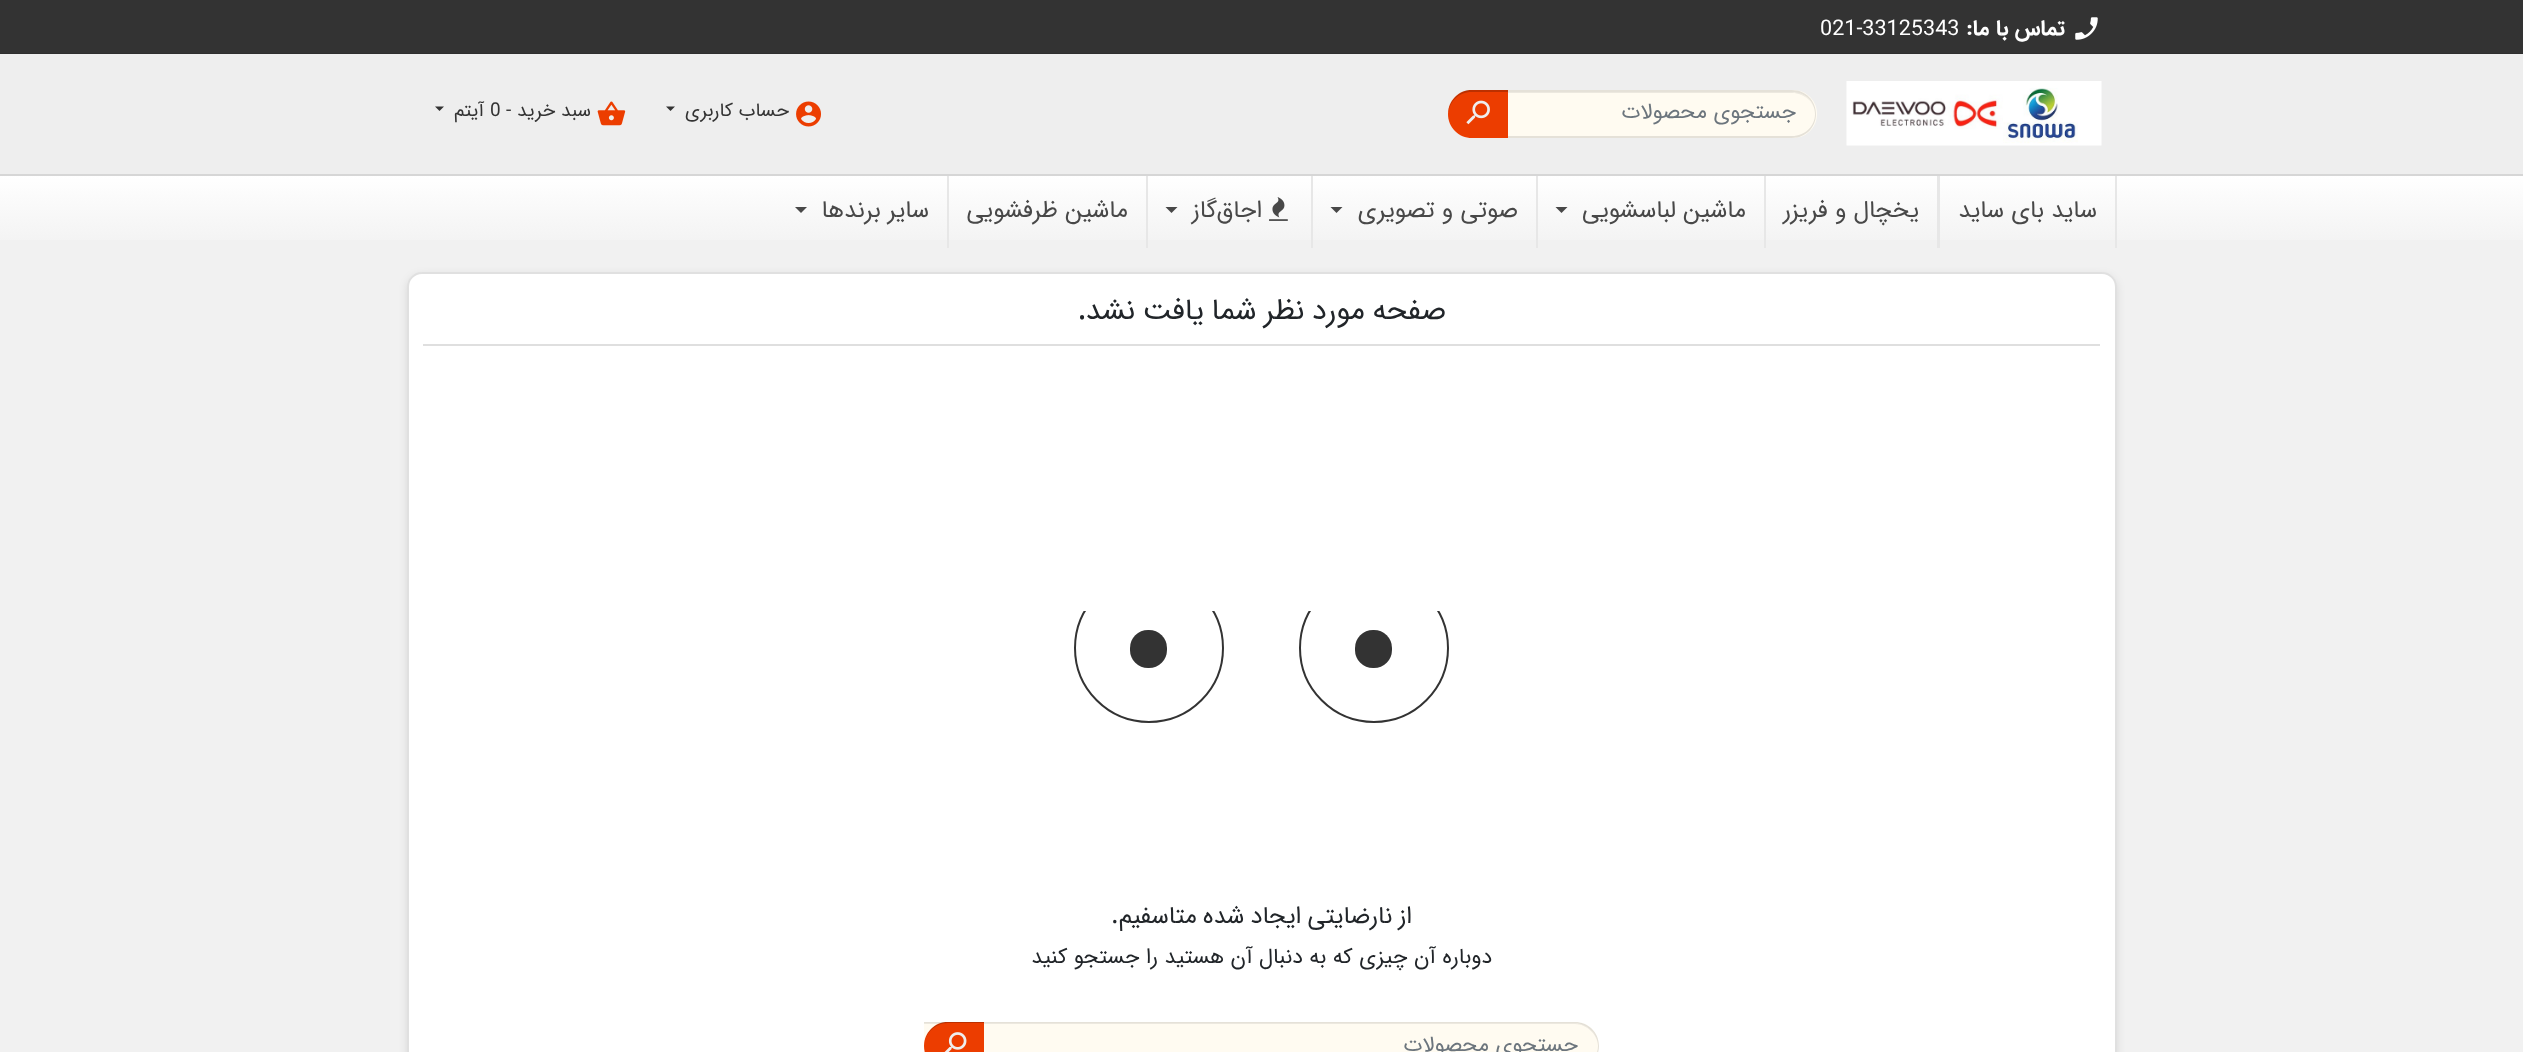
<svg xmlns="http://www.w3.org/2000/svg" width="2523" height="1052">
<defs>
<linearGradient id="g1" gradientUnits="userSpaceOnUse" x1="1262" y1="175" x2="1262" y2="248"><stop offset="0" stop-color="#fff"/><stop offset="1" stop-color="#f2f2f2"/></linearGradient>
</defs>
<rect width="100%" height="100%" fill="#f1f1f1"/>
<rect width="2523" height="53" fill="#333"/>
<rect y="53" width="2523" height="1" fill="#2e2e2e"/>
<image x="2075" y="17" width="23" height="23" href="media/1.png"/>
<text x="2065" y="35" style="font-family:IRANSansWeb;font-size:21.6px;font-weight:bold;direction:rtl;fill:#fff">تماس با ما:</text>
<text x="1820" y="35" style="font-family:IRANSansWeb;font-size:21.6px;fill:#fff">021-33125343</text>
<rect y="54" width="2523" height="120" fill="#eee"/>
<rect y="174" width="2523" height="2" fill="#d6d6d6"/>
<image x="1846" y="81" width="256" height="65" href="media/2.png"/>
<path d="M1508 90h285c13.5 0 24 10.5 24 24c0 13.5-10.5 24-24 24h-285z" fill="#fffbf1"/>
<path d="M1508 93h284c13 0 23 10 23 22c0-12-10-23-23-23h-284z" fill="#ece8df"/>
<path d="M1508 90h284c14 0 24 11 24 24c0 13-10 24-24 24h-284zm0 2h284c13 0 23 10 23 22c0 12-10 22-23 22h-284z" fill="#0000001a" fill-rule="evenodd"/>
<text x="1796" y="118" style="font-family:IRANSansWeb;font-size:21.6px;direction:rtl;fill:#6c757d">جستجوی محصولات</text>
<path d="M1472 90h36v48h-36c-13.5 0-24-10.5-24-24c0-13.5 10.5-24 24-24z" fill="#ec3d00"/>
<path d="M1472 92h36v-2h-41c-11 3-19 13-19 25c1-13 10-23 24-23z" fill="#00000033"/>
<image x="1466" y="100" width="24" height="25" href="media/3.png"/>
<image x="796" y="101" width="25" height="26" href="media/4.png"/>
<text x="789" y="116" style="font-family:IRANSansWeb;font-size:19px;direction:rtl;fill:#333">حساب کاربری</text>
<path d="M666 106.5h9l-4.5 4.5z" fill="#333"/>
<image x="597" y="101" width="29" height="25" href="media/5.png"/>
<text x="591" y="116" style="font-family:IRANSansWeb;font-size:19px;direction:rtl;fill:#333">سبد خرید -</text>
<text x="490" y="116" style="font-family:IRANSansWeb;font-size:19px;fill:#333">0</text>
<text x="484" y="116" style="font-family:IRANSansWeb;font-size:19px;direction:rtl;fill:#333">آیتم</text>
<path d="M435 106.5h9l-4.5 4.5z" fill="#333"/>
<rect y="176" width="2523" height="64" fill="url(#g1)"/>
<rect x="2115" y="176" width="2" height="72" fill="#e7e7e7"/>
<rect x="1937" y="176" width="3" height="72" fill="#e7e7e7"/>
<text x="2097" y="217" style="font-family:IRANSansWeb;font-size:24px;direction:rtl;fill:#484848">ساید بای ساید</text>
<text x="1919" y="217" style="font-family:IRANSansWeb;font-size:24px;direction:rtl;fill:#484848">یخچال و فریزر</text>
<rect x="1764" y="176" width="2" height="72" fill="#e7e7e7"/>
<text x="1746" y="217" style="font-family:IRANSansWeb;font-size:24px;direction:rtl;fill:#484848">ماشین لباسشویی</text>
<path d="M1555.5 207h12l-6 6z" fill="#484848"/>
<rect x="1536" y="176" width="2" height="72" fill="#e7e7e7"/>
<text x="1518" y="217" style="font-family:IRANSansWeb;font-size:24px;direction:rtl;fill:#484848">صوتی و تصویری</text>
<path d="M1330.5 207h12l-6 6z" fill="#484848"/>
<rect x="1311" y="176" width="2" height="72" fill="#e7e7e7"/>
<image x="1269" y="197" width="19" height="24" href="media/6.png"/>
<text x="1262" y="217" style="font-family:IRANSansWeb;font-size:24px;direction:rtl;fill:#484848">اجاق‌گاز</text>
<path d="M1165.5 207h12l-6 6z" fill="#484848"/>
<rect x="1146" y="176" width="2" height="72" fill="#e7e7e7"/>
<text x="1128" y="217" style="font-family:IRANSansWeb;font-size:24px;direction:rtl;fill:#484848">ماشین ظرفشویی</text>
<rect x="947" y="176" width="2" height="72" fill="#e7e7e7"/>
<text x="929" y="217" style="font-family:IRANSansWeb;font-size:24px;direction:rtl;fill:#484848">سایر برندها</text>
<path d="M795 207h12l-6 6z" fill="#484848"/>
<rect x="407" y="275" width="1710" height="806" rx="15" fill="#0000001a" filter="blur(4.5px)"/>
<rect x="407" y="272" width="1710" height="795" rx="15" fill="#fff"/>
<rect x="408" y="273" width="1708" height="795" rx="14" fill="none" stroke="#0000001f" stroke-width="2"/>
<rect x="423" y="344" width="1677" height="2" fill="#dfdfdf"/>
<text x="1446" y="319" word-spacing="-1.25" style="font-family:IRANSansWeb;font-size:29.75px;direction:rtl;fill:#212529">صفحه مورد نظر شما یافت نشد</text>
<text x="1086" y="319" style="font-family:Noto Sans;font-size:29.75px;font-weight:500;direction:rtl;fill:#212529">.</text>
<circle cx="1149" cy="648" r="74" fill="none" stroke="#333" stroke-width="2"/>
<rect x="1130" y="630" width="37" height="38" rx="18" fill="#333"/>
<circle cx="1374" cy="648" r="74" fill="none" stroke="#333" stroke-width="2"/>
<rect x="1355" y="630" width="37" height="38" rx="18" fill="#333"/>
<rect x="1083" y="573" width="132" height="38" fill="#fff"/>
<rect x="1308" y="573" width="132" height="38" fill="#fff"/>
<text x="1412" y="923" word-spacing="-1" style="font-family:IRANSansWeb;font-size:24.25px;direction:rtl;fill:#212529">از نارضایتی ایجاد شده متاسفیم</text>
<text x="1118" y="923" style="font-family:Noto Sans;font-size:24.25px;font-weight:500;direction:rtl;fill:#212529">.</text>
<text x="1492" y="963" style="font-family:IRANSansWeb;font-size:21.6px;direction:rtl;fill:#212529">دوباره آن چیزی که به دنبال آن هستید را جستجو کنید</text>
<path d="M924 1022h651c13.5 0 24 10.5 24 24c0 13.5-10.5 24-24 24h-651z" fill="#fffbf1"/>
<path d="M924 1024h651c12 0 23 11 23 22c0-12-10-23-22-23h-652z" fill="#ece8df"/>
<path d="M924 1022h651c13 0 24 10 24 24c0 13-11 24-24 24h-651zm0 1h651c12 0 23 10 23 23c0 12-11 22-23 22h-651z" fill="#0000001a" fill-rule="evenodd"/>
<text x="1578" y="1051" style="font-family:IRANSansWeb;font-size:21.6px;direction:rtl;fill:#6c757d">جستجوی محصولات</text>
<path d="M948 1022h36v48h-36c-13.5 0-24-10.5-24-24c0-13.5 10.5-24 24-24z" fill="#ec3d00"/>
<path d="M948 1023h36v-1h-41c-11 3-19 13-19 25c0-13 11-24 24-24z" fill="#00000033"/>
<image x="944" y="1032" width="23" height="20" href="media/7.png"/>
</svg>
